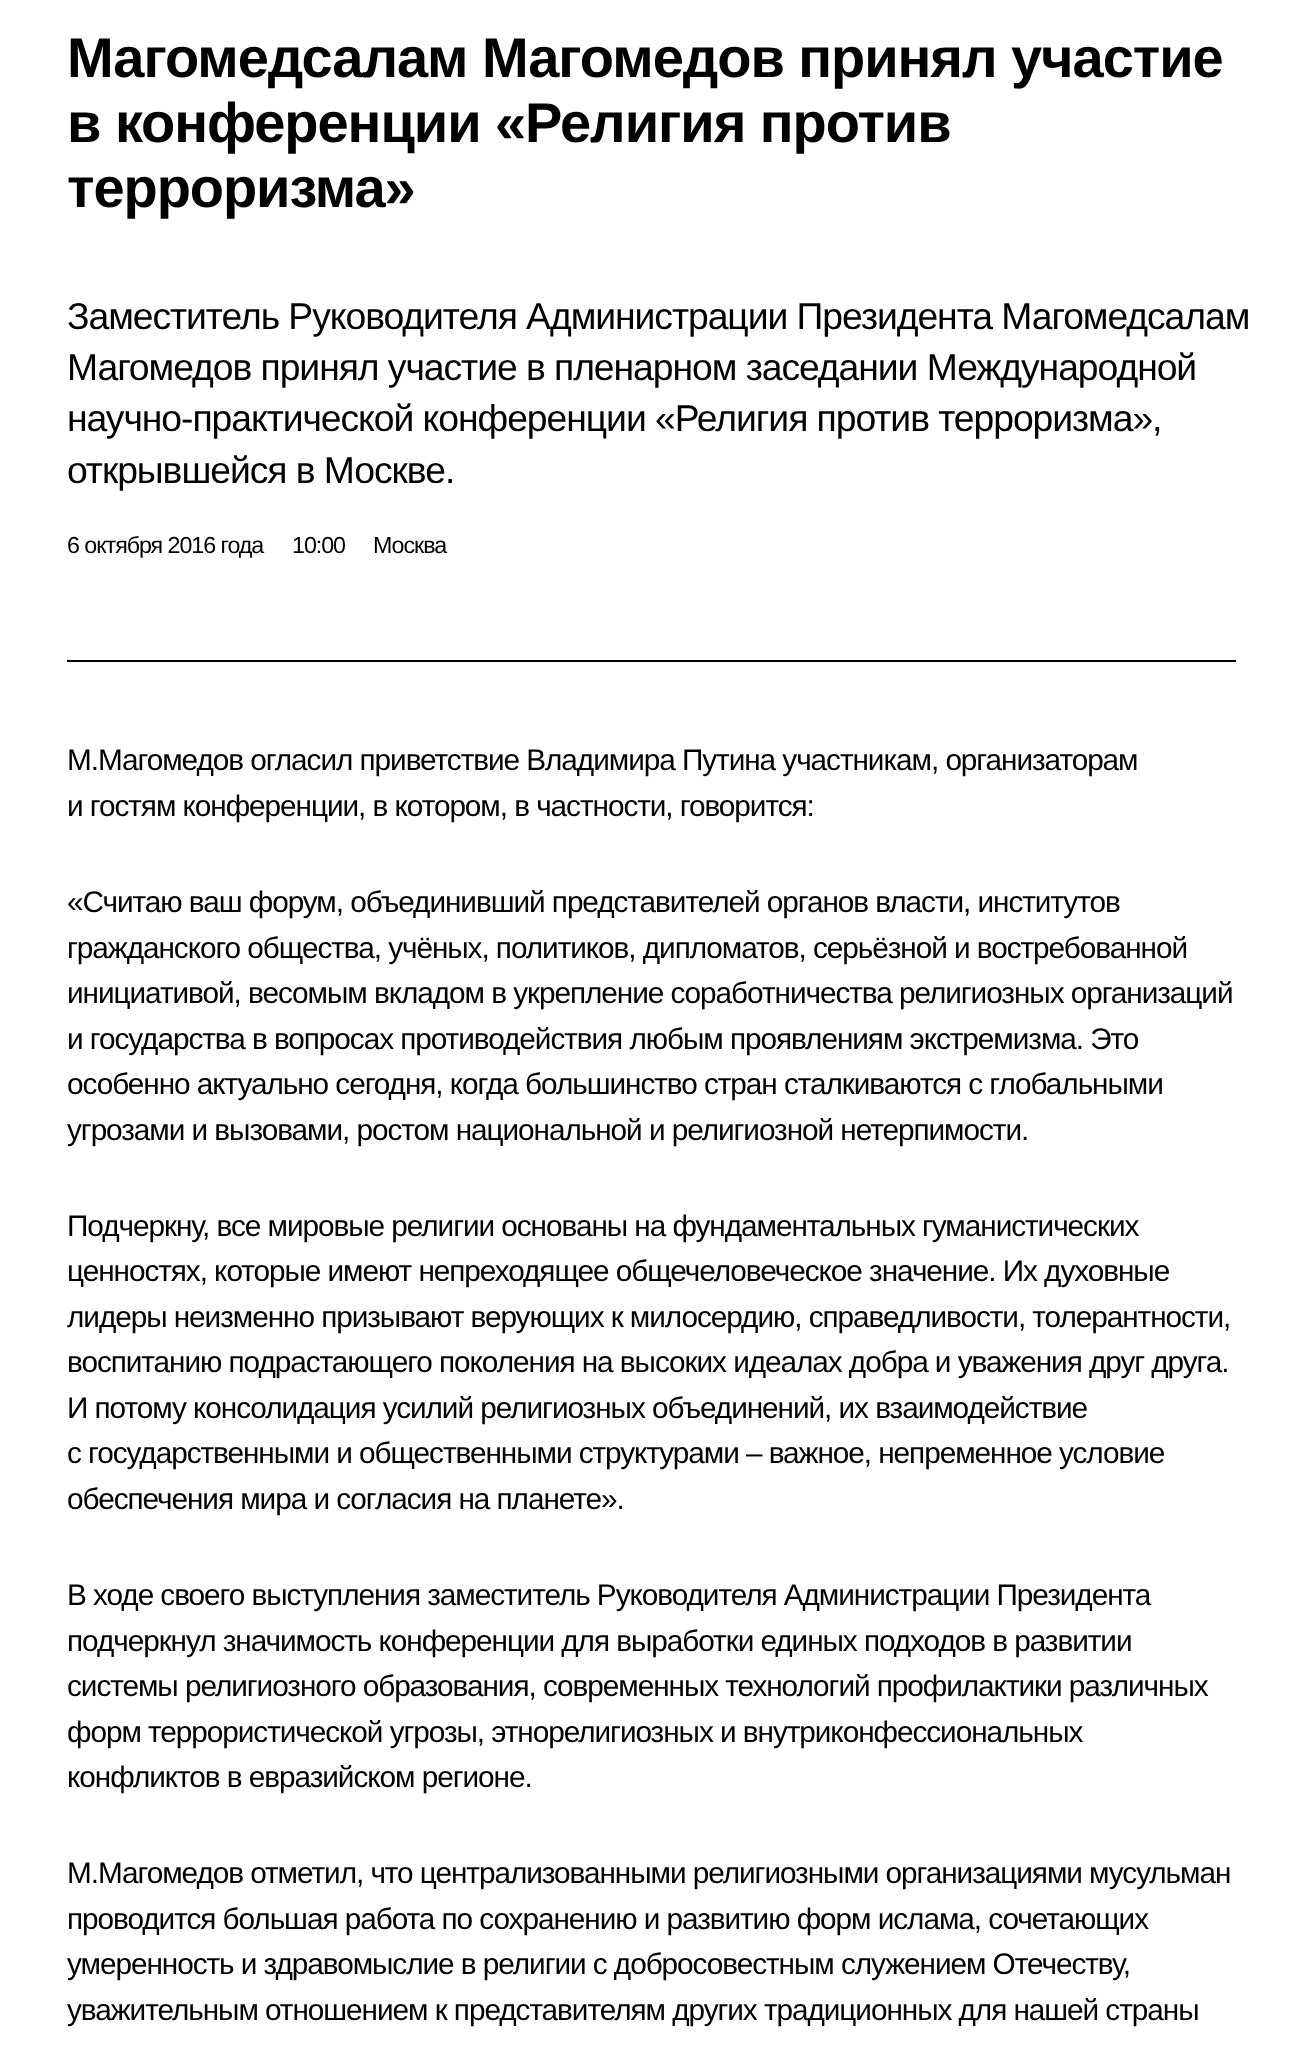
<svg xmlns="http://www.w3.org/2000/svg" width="1302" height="2057">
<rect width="100%" height="100%" fill="#fff"/>
<rect x="67" y="660" width="1169" height="2" fill="#000"/>
<text x="67" y="77" style="font-family:Liberation Sans;font-size:56px;font-weight:bold;letter-spacing:-1.05px;fill:#000">Магомедсалам Магомедов принял участие</text>
<text x="67" y="142" style="font-family:Liberation Sans;font-size:56px;font-weight:bold;letter-spacing:-1.05px;fill:#000">в конференции «Религия против</text>
<text x="67" y="207" style="font-family:Liberation Sans;font-size:56px;font-weight:bold;letter-spacing:-1.05px;fill:#000">терроризма»</text>
<text x="67" y="329" style="font-family:Liberation Sans;font-size:37.3px;letter-spacing:-1.05px;fill:#000">Заместитель Руководителя Администрации Президента Магомедсалам</text>
<text x="67" y="380" style="font-family:Liberation Sans;font-size:37.3px;letter-spacing:-1.05px;fill:#000">Магомедов принял участие в пленарном заседании Международной</text>
<text x="67" y="431" style="font-family:Liberation Sans;font-size:37.3px;letter-spacing:-1.05px;fill:#000">научно-практической конференции «Религия против терроризма»,</text>
<text x="67" y="483" style="font-family:Liberation Sans;font-size:37.3px;letter-spacing:-1.05px;fill:#000">открывшейся в Москве.</text>
<text x="67" y="553" style="font-family:Liberation Sans;font-size:23.25px;letter-spacing:-1.05px;fill:#000">6 октября 2016 года</text>
<text x="292" y="553" style="font-family:Liberation Sans;font-size:23.25px;letter-spacing:-1.05px;fill:#000">10:00</text>
<text x="373" y="553" style="font-family:Liberation Sans;font-size:23.25px;letter-spacing:-1.05px;fill:#000">Москва</text>
<text x="67" y="770" style="font-family:Liberation Sans;font-size:29.75px;letter-spacing:-1.05px;fill:#000">М.Магомедов огласил приветствие Владимира Путина участникам, организаторам</text>
<text x="67" y="816" style="font-family:Liberation Sans;font-size:29.75px;letter-spacing:-1.05px;fill:#000">и гостям конференции, в котором, в частности, говорится:</text>
<text x="67" y="912" style="font-family:Liberation Sans;font-size:29.75px;letter-spacing:-1.05px;fill:#000">«Считаю ваш форум, объединивший представителей органов власти, институтов</text>
<text x="67" y="958" style="font-family:Liberation Sans;font-size:29.75px;letter-spacing:-1.05px;fill:#000">гражданского общества, учёных, политиков, дипломатов, серьёзной и востребованной</text>
<text x="67" y="1003" style="font-family:Liberation Sans;font-size:29.75px;letter-spacing:-1.05px;fill:#000">инициативой, весомым вкладом в укрепление соработничества религиозных организаций</text>
<text x="67" y="1049" style="font-family:Liberation Sans;font-size:29.75px;letter-spacing:-1.05px;fill:#000">и государства в вопросах противодействия любым проявлениям экстремизма. Это</text>
<text x="67" y="1094" style="font-family:Liberation Sans;font-size:29.75px;letter-spacing:-1.05px;fill:#000">особенно актуально сегодня, когда большинство стран сталкиваются с глобальными</text>
<text x="67" y="1140" style="font-family:Liberation Sans;font-size:29.75px;letter-spacing:-1.05px;fill:#000">угрозами и вызовами, ростом национальной и религиозной нетерпимости.</text>
<text x="67" y="1236" style="font-family:Liberation Sans;font-size:29.75px;letter-spacing:-1.05px;fill:#000">Подчеркну, все мировые религии основаны на фундаментальных гуманистических</text>
<text x="67" y="1281" style="font-family:Liberation Sans;font-size:29.75px;letter-spacing:-1.05px;fill:#000">ценностях, которые имеют непреходящее общечеловеческое значение. Их духовные</text>
<text x="67" y="1327" style="font-family:Liberation Sans;font-size:29.75px;letter-spacing:-1.05px;fill:#000">лидеры неизменно призывают верующих к милосердию, справедливости, толерантности,</text>
<text x="67" y="1372" style="font-family:Liberation Sans;font-size:29.75px;letter-spacing:-1.05px;fill:#000">воспитанию подрастающего поколения на высоких идеалах добра и уважения друг друга.</text>
<text x="67" y="1418" style="font-family:Liberation Sans;font-size:29.75px;letter-spacing:-1.05px;fill:#000">И потому консолидация усилий религиозных объединений, их взаимодействие</text>
<text x="67" y="1463" style="font-family:Liberation Sans;font-size:29.75px;letter-spacing:-1.05px;fill:#000">с государственными и общественными структурами – важное, непременное условие</text>
<text x="67" y="1509" style="font-family:Liberation Sans;font-size:29.75px;letter-spacing:-1.05px;fill:#000">обеспечения мира и согласия на планете».</text>
<text x="67" y="1605" style="font-family:Liberation Sans;font-size:29.75px;letter-spacing:-1.05px;fill:#000">В ходе своего выступления заместитель Руководителя Администрации Президента</text>
<text x="67" y="1651" style="font-family:Liberation Sans;font-size:29.75px;letter-spacing:-1.05px;fill:#000">подчеркнул значимость конференции для выработки единых подходов в развитии</text>
<text x="67" y="1696" style="font-family:Liberation Sans;font-size:29.75px;letter-spacing:-1.05px;fill:#000">системы религиозного образования, современных технологий профилактики различных</text>
<text x="67" y="1742" style="font-family:Liberation Sans;font-size:29.75px;letter-spacing:-1.05px;fill:#000">форм террористической угрозы, этнорелигиозных и внутриконфессиональных</text>
<text x="67" y="1787" style="font-family:Liberation Sans;font-size:29.75px;letter-spacing:-1.05px;fill:#000">конфликтов в евразийском регионе.</text>
<text x="67" y="1883" style="font-family:Liberation Sans;font-size:29.75px;letter-spacing:-1.05px;fill:#000">М.Магомедов отметил, что централизованными религиозными организациями мусульман</text>
<text x="67" y="1929" style="font-family:Liberation Sans;font-size:29.75px;letter-spacing:-1.05px;fill:#000">проводится большая работа по сохранению и развитию форм ислама, сочетающих</text>
<text x="67" y="1974" style="font-family:Liberation Sans;font-size:29.75px;letter-spacing:-1.05px;fill:#000">умеренность и здравомыслие в религии с добросовестным служением Отечеству,</text>
<text x="67" y="2020" style="font-family:Liberation Sans;font-size:29.75px;letter-spacing:-1.05px;fill:#000">уважительным отношением к представителям других традиционных для нашей страны</text>
</svg>
